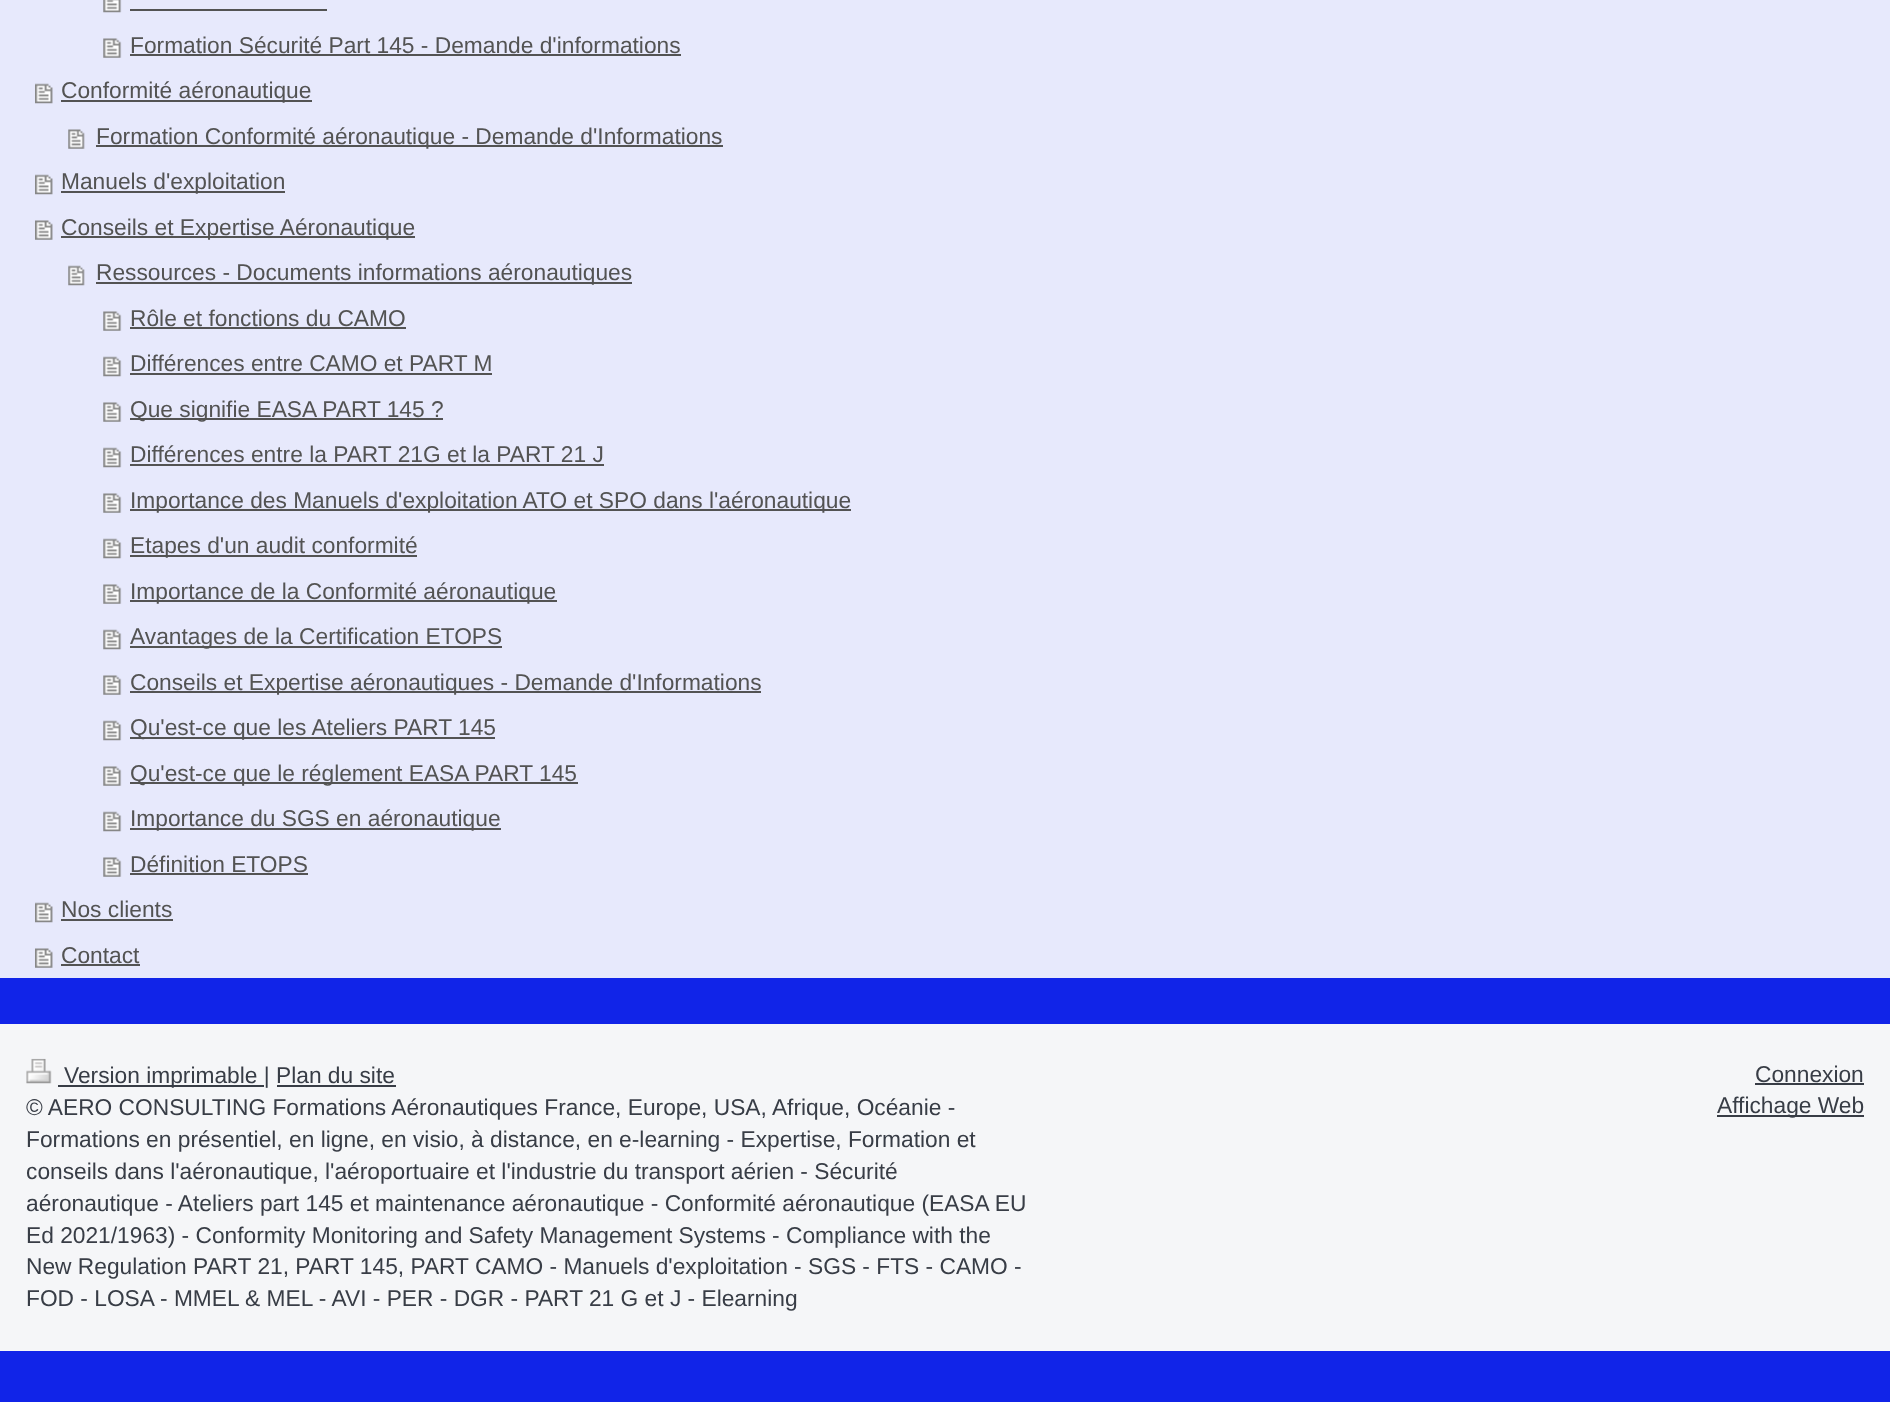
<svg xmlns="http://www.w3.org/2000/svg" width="1890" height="1402">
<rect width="100%" height="100%" fill="#1124e8"/>
<rect width="1890" height="978" fill="#e7e9fc"/>
<image x="103" y="0" width="19" height="13" href="media/1.png"/>
<rect x="130" y="9" width="197" height="2" fill="#535353"/>
<image x="103" y="38" width="19" height="20" href="media/2.png"/>
<text x="130" y="53" style="font-family:Liberation Sans;font-size:22.75px;fill:#535353">Formation Sécurité Part 145 - Demande d'informations</text>
<rect x="130" y="54" width="551" height="2" fill="#535353"/>
<image x="35" y="83" width="18" height="21" href="media/3.png"/>
<rect x="61" y="100" width="251" height="2" fill="#535353"/>
<text x="61" y="98" style="font-family:Liberation Sans;font-size:22.75px;fill:#535353">Conformité aéronautique</text>
<image x="68" y="129" width="17" height="20" href="media/4.png"/>
<rect x="96" y="145" width="627" height="2" fill="#535353"/>
<text x="96" y="144" style="font-family:Liberation Sans;font-size:22.75px;fill:#535353">Formation Conformité aéronautique - Demande d'Informations</text>
<image x="35" y="174" width="18" height="21" href="media/3.png"/>
<rect x="61" y="191" width="224" height="2" fill="#535353"/>
<text x="61" y="189" style="font-family:Liberation Sans;font-size:22.75px;fill:#535353">Manuels d'exploitation</text>
<image x="35" y="220" width="18" height="20" href="media/5.png"/>
<rect x="61" y="236" width="354" height="2" fill="#535353"/>
<text x="61" y="235" style="font-family:Liberation Sans;font-size:22.75px;fill:#535353">Conseils et Expertise Aéronautique</text>
<image x="68" y="265" width="17" height="21" href="media/6.png"/>
<rect x="96" y="282" width="536" height="2" fill="#535353"/>
<text x="96" y="280" style="font-family:Liberation Sans;font-size:22.75px;fill:#535353">Ressources - Documents informations aéronautiques</text>
<image x="103" y="311" width="19" height="20" href="media/2.png"/>
<text x="130" y="326" style="font-family:Liberation Sans;font-size:22.75px;fill:#535353">Rôle et fonctions du CAMO</text>
<rect x="130" y="327" width="276" height="2" fill="#535353"/>
<image x="103" y="356" width="19" height="21" href="media/7.png"/>
<text x="130" y="371" style="font-family:Liberation Sans;font-size:22.75px;fill:#535353">Différences entre CAMO et PART M</text>
<rect x="130" y="373" width="362" height="2" fill="#535353"/>
<image x="103" y="402" width="19" height="20" href="media/2.png"/>
<rect x="130" y="418" width="313" height="2" fill="#535353"/>
<text x="130" y="417" style="font-family:Liberation Sans;font-size:22.75px;fill:#535353">Que signifie EASA PART 145 ?</text>
<image x="103" y="447" width="19" height="21" href="media/7.png"/>
<text x="130" y="462" style="font-family:Liberation Sans;font-size:22.75px;fill:#535353">Différences entre la PART 21G et la PART 21 J</text>
<rect x="130" y="464" width="474" height="2" fill="#535353"/>
<image x="103" y="493" width="19" height="20" href="media/2.png"/>
<rect x="130" y="509" width="721" height="2" fill="#535353"/>
<text x="130" y="508" style="font-family:Liberation Sans;font-size:22.75px;fill:#535353">Importance des Manuels d'exploitation ATO et SPO dans l'aéronautique</text>
<image x="103" y="538" width="19" height="21" href="media/7.png"/>
<rect x="130" y="555" width="287" height="2" fill="#535353"/>
<text x="130" y="553" style="font-family:Liberation Sans;font-size:22.75px;fill:#535353">Etapes d'un audit conformité</text>
<image x="103" y="584" width="19" height="20" href="media/2.png"/>
<rect x="130" y="600" width="427" height="2" fill="#535353"/>
<text x="130" y="599" style="font-family:Liberation Sans;font-size:22.75px;fill:#535353">Importance de la Conformité aéronautique</text>
<image x="103" y="629" width="19" height="21" href="media/7.png"/>
<rect x="130" y="646" width="372" height="2" fill="#535353"/>
<text x="130" y="644" style="font-family:Liberation Sans;font-size:22.75px;fill:#535353">Avantages de la Certification ETOPS</text>
<image x="103" y="675" width="19" height="20" href="media/2.png"/>
<rect x="130" y="691" width="631" height="2" fill="#535353"/>
<text x="130" y="690" style="font-family:Liberation Sans;font-size:22.75px;fill:#535353">Conseils et Expertise aéronautiques - Demande d'Informations</text>
<image x="103" y="720" width="19" height="21" href="media/7.png"/>
<rect x="130" y="737" width="365" height="2" fill="#535353"/>
<text x="130" y="735" style="font-family:Liberation Sans;font-size:22.75px;fill:#535353">Qu'est-ce que les Ateliers PART 145</text>
<image x="103" y="766" width="19" height="20" href="media/2.png"/>
<rect x="130" y="782" width="448" height="2" fill="#535353"/>
<text x="130" y="781" style="font-family:Liberation Sans;font-size:22.75px;fill:#535353">Qu'est-ce que le réglement EASA PART 145</text>
<image x="103" y="811" width="19" height="21" href="media/7.png"/>
<rect x="130" y="828" width="371" height="2" fill="#535353"/>
<text x="130" y="826" style="font-family:Liberation Sans;font-size:22.75px;fill:#535353">Importance du SGS en aéronautique</text>
<image x="103" y="857" width="19" height="20" href="media/8.png"/>
<text x="130" y="872" style="font-family:Liberation Sans;font-size:22.75px;fill:#535353">Définition ETOPS</text>
<rect x="130" y="873" width="178" height="2" fill="#535353"/>
<image x="35" y="902" width="18" height="21" href="media/3.png"/>
<text x="61" y="917" style="font-family:Liberation Sans;font-size:22.75px;fill:#535353">Nos clients</text>
<rect x="61" y="919" width="112" height="2" fill="#535353"/>
<image x="35" y="948" width="18" height="20" href="media/5.png"/>
<text x="61" y="963" style="font-family:Liberation Sans;font-size:22.75px;fill:#535353">Contact</text>
<rect x="61" y="964" width="79" height="2" fill="#535353"/>
<rect y="1024" width="1890" height="327" fill="#f5f6f8"/>
<image x="26" y="1058" width="26" height="26" href="media/9.png"/>
<rect x="58" y="1085" width="206" height="2" fill="#383d46"/>
<text x="64" y="1083" style="font-family:Liberation Sans;font-size:22.75px;fill:#383d46">Version imprimable | Plan du site</text>
<rect x="277" y="1085" width="119" height="2" fill="#383d46"/>
<text x="26" y="1115" style="font-family:Liberation Sans;font-size:22.75px;fill:#383d46">© AERO CONSULTING Formations Aéronautiques France, Europe, USA, Afrique, Océanie -</text>
<text x="26" y="1147" style="font-family:Liberation Sans;font-size:22.75px;fill:#383d46">Formations en présentiel, en ligne, en visio, à distance, en e-learning - Expertise, Formation et</text>
<text x="26" y="1179" style="font-family:Liberation Sans;font-size:22.75px;fill:#383d46">conseils dans l'aéronautique, l'aéroportuaire et l'industrie du transport aérien - Sécurité</text>
<text x="26" y="1211" style="font-family:Liberation Sans;font-size:22.75px;fill:#383d46">aéronautique - Ateliers part 145 et maintenance aéronautique - Conformité aéronautique (EASA EU</text>
<text x="26" y="1243" style="font-family:Liberation Sans;font-size:22.75px;fill:#383d46">Ed 2021/1963) - Conformity Monitoring and Safety Management Systems - Compliance with the</text>
<text x="26" y="1274" style="font-family:Liberation Sans;font-size:22.75px;fill:#383d46">New Regulation PART 21, PART 145, PART CAMO - Manuels d'exploitation - SGS - FTS - CAMO -</text>
<text x="26" y="1306" style="font-family:Liberation Sans;font-size:22.75px;fill:#383d46">FOD - LOSA - MMEL &amp; MEL - AVI - PER - DGR - PART 21 G et J - Elearning</text>
<text x="1755" y="1082" style="font-family:Liberation Sans;font-size:22.75px;fill:#383d46">Connexion</text>
<rect x="1755" y="1083" width="109" height="2" fill="#383d46"/>
<rect x="1717" y="1115" width="147" height="2" fill="#383d46"/>
<text x="1717" y="1113" style="font-family:Liberation Sans;font-size:22.75px;fill:#383d46">Affichage Web</text>
</svg>
